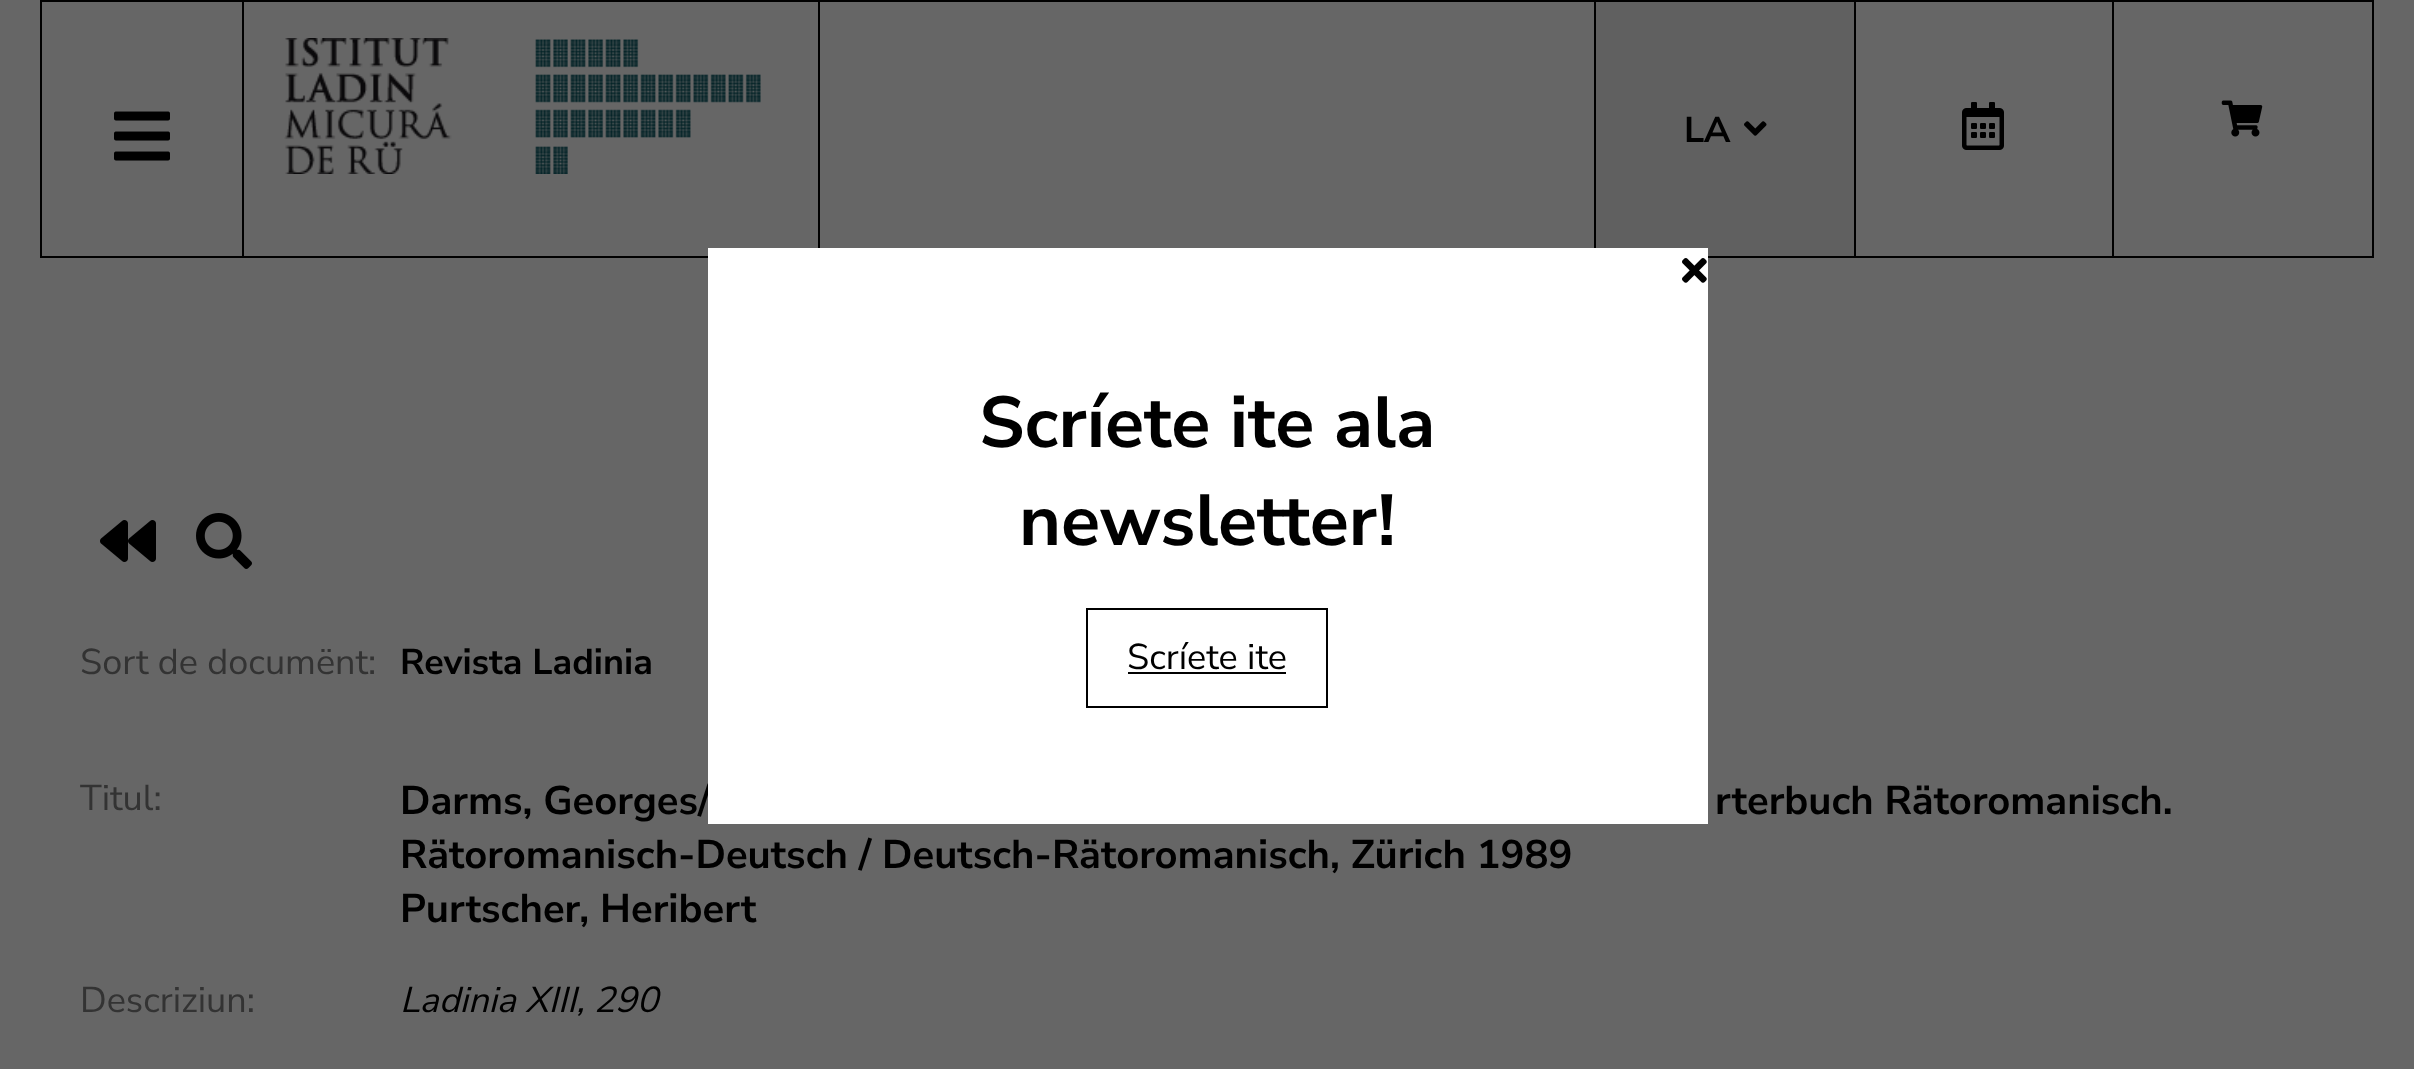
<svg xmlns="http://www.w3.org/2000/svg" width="2414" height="1069">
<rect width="100%" height="100%" fill="#666"/>
<rect x="41" y="1" width="2332" height="256" fill="none" stroke="#000" stroke-width="2"/>
<rect x="818" y="2" width="2" height="254" fill="#000"/>
<rect x="242" y="2" width="2" height="254" fill="#000"/>
<image x="114" y="111" width="56" height="50" href="media/1.png"/>
<image x="284" y="38" width="477" height="136" href="media/2.png"/>
<rect x="1594" y="2" width="2" height="254" fill="#000"/>
<rect x="1854" y="2" width="2" height="254" fill="#000"/>
<rect x="1596" y="2" width="258" height="254" fill="#606060"/>
<text x="1684" y="142" style="font-family:Nunito Sans;font-size:36px;font-weight:bold;fill:#000">LA</text>
<image x="1744" y="121" width="23" height="15" href="media/3.png"/>
<rect x="2112" y="2" width="2" height="254" fill="#000"/>
<image x="1962" y="102" width="42" height="48" href="media/4.png"/>
<image x="2221" y="100" width="42" height="37" href="media/5.png"/>
<text x="400" y="814" style="font-family:Nunito Sans;font-size:40px;font-weight:bold;fill:#000">Darms, Georges/</text>
<rect x="708" y="248" width="1000" height="576" fill="#fff"/>
<image x="1682" y="258" width="25" height="25" href="media/6.png"/>
<text x="979" y="447" style="font-family:Nunito Sans;font-size:72px;font-weight:bold;fill:#000">Scríete ite ala</text>
<text x="1019" y="545" style="font-family:Nunito Sans;font-size:72px;font-weight:bold;fill:#000">newsletter!</text>
<rect x="1087" y="609" width="240" height="98" fill="none" stroke="#000" stroke-width="2"/>
<text x="1127" y="669" style="font-family:Nunito Sans;font-size:36px;fill:#000">Scríete ite</text>
<rect x="1128" y="672" width="158" height="2" fill="#000"/>
<image x="100" y="520" width="56" height="42" href="media/7.png"/>
<image x="196" y="513" width="56" height="56" href="media/8.png"/>
<text x="80" y="674" style="font-family:Nunito Sans;font-size:36px;fill:#333">Sort de documënt:</text>
<text x="400" y="674" style="font-family:Nunito Sans;font-size:36px;font-weight:bold;fill:#000">Revista Ladinia</text>
<text x="80" y="810" style="font-family:Nunito Sans;font-size:36px;fill:#333">Titul:</text>
<text x="1715" y="814" style="font-family:Nunito Sans;font-size:40px;font-weight:bold;fill:#000">rterbuch Rätoromanisch.</text>
<text x="400" y="868" style="font-family:Nunito Sans;font-size:40px;font-weight:bold;fill:#000">Rätoromanisch-Deutsch / Deutsch-Rätoromanisch, Zürich 1989</text>
<text x="400" y="922" style="font-family:Nunito Sans;font-size:40px;font-weight:bold;fill:#000">Purtscher, Heribert</text>
<text x="80" y="1012" style="font-family:Nunito Sans;font-size:36px;fill:#333">Descriziun:</text>
<text x="400" y="1012" style="font-family:Nunito Sans;font-size:36px;font-style:italic;fill:#000">Ladinia XIII, 290</text>
</svg>
